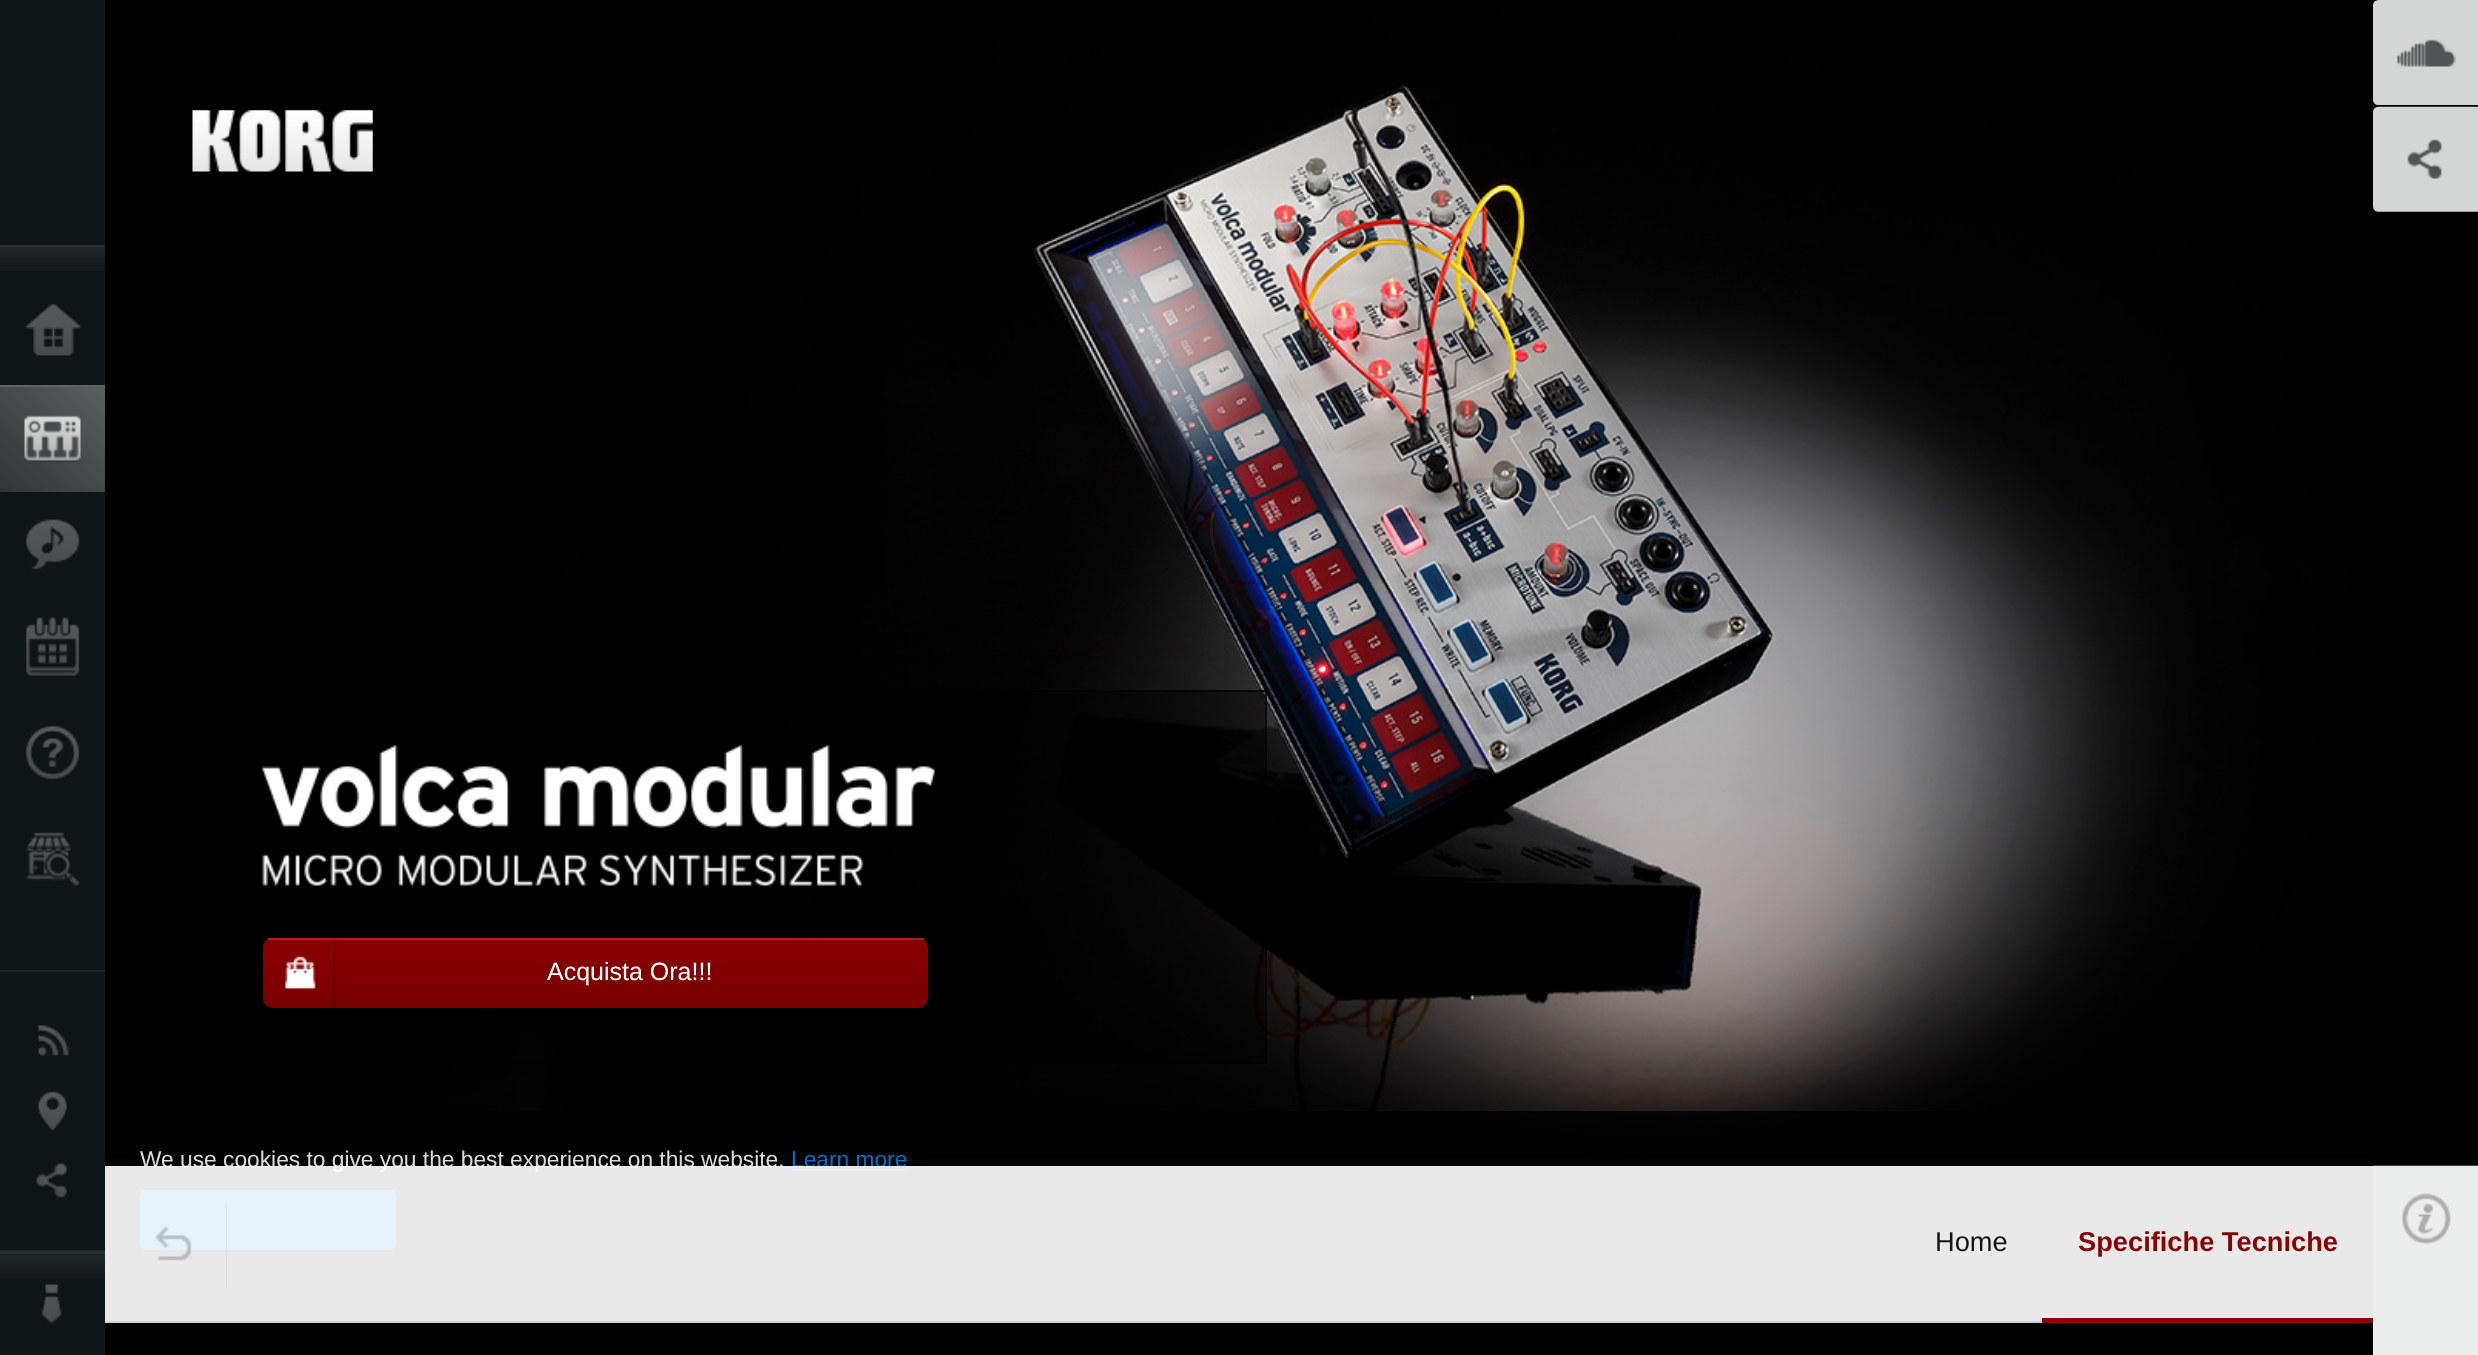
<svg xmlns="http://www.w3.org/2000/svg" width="2478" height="1355">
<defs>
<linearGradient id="g1" gradientUnits="userSpaceOnUse" x1="0" y1="492" x2="105" y2="387"><stop offset="0" stop-color="#323536"/><stop offset="1" stop-color="#5b5e5f"/></linearGradient>
<clipPath id="clip1"><rect x="263" y="938" width="665" height="70" rx="9"/></clipPath>
<linearGradient id="g2" gradientUnits="userSpaceOnUse" x1="595" y1="872" x2="595" y2="940"><stop offset="0" stop-color="#8b0000"/><stop offset="1" stop-color="#780000"/></linearGradient>
<linearGradient id="g3" gradientUnits="userSpaceOnUse" x1="595" y1="940" x2="595" y2="1008"><stop offset="0" stop-color="#8b0000"/><stop offset="1" stop-color="#780000"/></linearGradient>
</defs>
<rect width="100%" height="100%" fill="#0f1416"/>
<image x="0" y="247" width="105" height="24" href="media/1.png"/>
<rect y="245" width="105" height="2" fill="#2d3133"/>
<image x="26" y="304" width="55" height="52" href="media/2.png"/>
<rect y="387" width="105" height="105" fill="url(#g1)"/>
<rect y="385" width="105" height="2" fill="#616465"/>
<image x="24" y="415" width="57" height="48" href="media/3.png"/>
<image x="26" y="519" width="54" height="51" href="media/4.png"/>
<image x="26" y="617" width="54" height="59" href="media/5.png"/>
<image x="26" y="726" width="54" height="54" href="media/6.png"/>
<image x="26" y="832" width="54" height="54" href="media/7.png"/>
<rect y="970" width="105" height="2" fill="#222628"/>
<image x="38" y="1025" width="31" height="31" href="media/8.png"/>
<image x="38" y="1091" width="29" height="40" href="media/9.png"/>
<image x="36" y="1163" width="31" height="35" href="media/10.png"/>
<image x="0" y="1252" width="105" height="28" href="media/11.png"/>
<rect y="1250" width="105" height="2" fill="#222628"/>
<image x="41" y="1283" width="21" height="41" href="media/12.png"/>
<image x="105" y="0" width="2373" height="1159" href="media/13.png"/>
<image x="2372" y="0" width="106" height="105" href="media/14.png"/>
<image x="192" y="110" width="181" height="62" href="media/15.png"/>
<image x="2373" y="106" width="105" height="106" href="media/16.png"/>
<rect x="211" y="691" width="1055" height="372" fill="none" stroke="#000000bf" stroke-width="2"/>
<rect x="812" y="691" width="453" height="371" fill="#00000080"/>
<image x="262" y="745" width="673" height="141" href="media/17.png"/>
<g clip-path="url(#clip1)">
<rect x="263" y="939" width="665" height="1" fill="url(#g2)"/>
<path d="M263 940h665v59c0 5-4 9-9 9h-647c-5 0-9-4-9-9z" fill="url(#g3)"/>
</g>
<rect x="268" y="938" width="656" height="2" fill="#9d2626"/>
<image x="284" y="956" width="32" height="33" href="media/18.png"/>
<rect x="333" y="938" width="2" height="70" fill="#0f141633"/>
<text x="547" y="980" style="font-family:Liberation Sans;font-size:25px;fill:#fff">Acquista Ora!!!</text>
<rect x="105" y="1166" width="2268" height="155" fill="#fff"/>
<rect x="105" y="1323" width="2268" height="32" fill="#000"/>
<rect x="105" y="1111" width="2373" height="244" fill="#000000d9"/>
<text x="140" y="1167" style="font-family:Liberation Sans;font-size:22.75px;fill:#dcdcdc">We use cookies to give you the best experience on this website.</text>
<text x="791" y="1167" style="font-family:Liberation Sans;font-size:22.75px;fill:#0072c0">Learn more</text>
<rect x="791" y="1169" width="116" height="2" fill="#0072c0"/>
<rect x="140" y="1190" width="256" height="60" rx="5" fill="#0072c0"/>
<rect x="105" y="1166" width="2268" height="155" fill="#ffffffe6"/>
<rect x="105" y="1321" width="1937" height="2" fill="#d2d2d2"/>
<image x="155" y="1201" width="72" height="87" href="media/19.png"/>
<text x="1935" y="1251" style="font-family:Liberation Sans;font-size:27.25px;fill:#151515">Home</text>
<rect x="2042" y="1318" width="331" height="5" fill="#840404"/>
<text x="2078" y="1251" style="font-family:Liberation Sans;font-size:27.25px;font-weight:bold;fill:#840404">Specifiche Tecniche</text>
<rect x="2373" y="1245" width="105" height="110" fill="#eceded"/>
<image x="2373" y="1165" width="105" height="80" href="media/20.png"/>
</svg>
